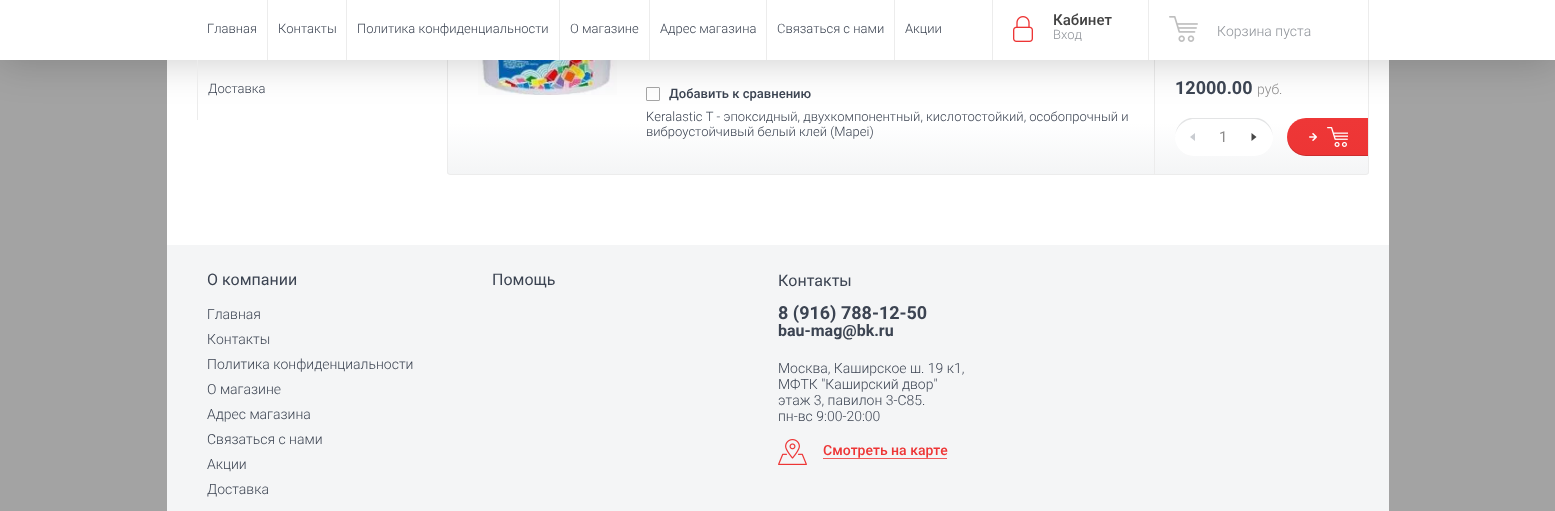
<svg xmlns="http://www.w3.org/2000/svg" width="1555" height="511">
<defs>
<clipPath id="clip1"><rect x="447" y="-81" width="922" height="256" rx="3"/></clipPath>
<linearGradient id="g1" gradientUnits="userSpaceOnUse" x1="908" y1="174" x2="908" y2="-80"><stop offset="0" stop-color="#f4f5f6"/><stop offset="0.2" stop-color="#fff"/></linearGradient>
<linearGradient id="g2" gradientUnits="userSpaceOnUse" x1="1328" y1="156" x2="1328" y2="118"><stop offset="0" stop-color="#ed3535"/><stop offset="1" stop-color="#ee3737"/></linearGradient>
</defs>
<rect width="100%" height="100%" fill="#a3a3a3"/>
<rect x="167" y="60" width="1222" height="185" fill="#fff"/>
<g clip-path="url(#clip1)">
<rect x="447" y="60" width="922" height="114" fill="url(#g1)"/>
</g>
<rect x="447.5" y="-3.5" width="921" height="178" rx="2.5" fill="none" stroke="#ececec"/>
<image x="478" y="60" width="139" height="35" href="media/3.png"/>
<rect x="646.5" y="87.5" width="13" height="13" rx="0.5" fill="none" stroke="#a6a6a6"/>
<rect x="1154" y="60" width="1" height="114" fill="#ececec"/>
<rect x="1175" y="118" width="98" height="38" rx="19" fill="#fff"/>
<path d="M1194 119h60c10 0 19 9 19 19c0-10-6-18-15-20h-14h-54c-9 2-15 10-15 20c0-10 9-19 19-19z" fill="#e3e4e5"/>
<path d="M1306 118h62v38h-62c-10.5 0-19-8.5-19-19c0-10.5 8.5-19 19-19z" fill="url(#g2)"/>
<rect y="1" width="1555" height="60" fill="#00000033" filter="blur(20px)"/>
<rect width="1555" height="60" fill="#fff"/>
<text x="207" y="33" style="font-family:Roboto;font-size:13px;font-weight:300;fill:#3c4452">Главная</text>
<rect x="267" width="1" height="60" fill="#ececec"/>
<text x="278" y="33" style="font-family:Roboto;font-size:13px;font-weight:300;fill:#3c4452">Контакты</text>
<rect x="346" width="1" height="60" fill="#ececec"/>
<text x="357" y="33" style="font-family:Roboto;font-size:13px;font-weight:300;fill:#3c4452">Политика конфиденциальности</text>
<rect x="559" width="1" height="60" fill="#ececec"/>
<text x="570" y="33" style="font-family:Roboto;font-size:13px;font-weight:300;fill:#3c4452">О магазине</text>
<rect x="649" width="1" height="60" fill="#ececec"/>
<text x="660" y="33" style="font-family:Roboto;font-size:13px;font-weight:300;fill:#3c4452">Адрес магазина</text>
<rect x="766" width="1" height="60" fill="#ececec"/>
<text x="777" y="33" style="font-family:Roboto;font-size:13px;font-weight:300;fill:#3c4452">Связаться с нами</text>
<rect x="894" width="1" height="60" fill="#ececec"/>
<text x="905" y="33" style="font-family:Roboto;font-size:13px;font-weight:300;fill:#3c4452">Акции</text>
<rect x="197" y="60" width="1" height="60" fill="#ececec"/>
<text x="208" y="93" style="font-family:Roboto;font-size:13px;font-weight:300;fill:#3c4452">Доставка</text>
<rect x="992" width="1" height="60" fill="#ececec"/>
<rect x="1148" width="1" height="60" fill="#ececec"/>
<image x="1013" y="16" width="20" height="26" href="media/1.png"/>
<text x="1053" y="25" style="font-family:Roboto;font-size:15px;font-weight:500;fill:#424242">Кабинет</text>
<text x="1053" y="39" style="font-family:Roboto;font-size:13px;font-weight:300;fill:#8e9298">Вход</text>
<rect x="1368" width="1" height="60" fill="#ececec"/>
<image x="1169" y="16" width="29" height="26" href="media/2.png"/>
<text x="1217" y="36" style="font-family:Roboto;font-size:14px;font-weight:300;fill:#8e9298">Корзина пуста</text>
<text x="669" y="98" style="font-family:Roboto;font-size:13px;font-weight:500;fill:#3c4452">Добавить к сравнению</text>
<text x="646" y="121" style="font-family:Roboto;font-size:13px;font-weight:300;fill:#3c4452">Keralastiс T - эпоксидный, двухкомпонентный, кислотостойкий, особопрочный и</text>
<text x="646" y="136" style="font-family:Roboto;font-size:13px;font-weight:300;fill:#3c4452">виброустойчивый белый клей (Mapei)</text>
<text x="1175" y="94" style="font-family:Roboto;font-size:18px;font-weight:bold;fill:#3c4452">12000.00</text>
<text x="1257" y="94" style="font-family:Roboto;font-size:14px;font-weight:300;fill:#8c8b8b">руб.</text>
<path d="M1195 133v8l-5-4z" fill="#c9ccd1"/>
<text x="1219" y="142" style="font-family:Roboto;font-size:15px;fill:#8c8b8b">1</text>
<path d="M1251.5 141v-8l5 4z" fill="#474747"/>
<path d="M1287 136v1c0 10 9 19 19 19h62v-1h-62c-10 0-19-9-19-19z" fill="#00000024"/>
<image x="1309" y="133" width="8" height="8" href="media/4.png"/>
<image x="1327" y="127" width="21" height="20" href="media/5.png"/>
<rect x="167" y="245" width="1222" height="266" fill="#f4f5f6"/>
<text x="207" y="285" style="font-family:Roboto;font-size:16px;fill:#3c4452">О компании</text>
<text x="207" y="319" style="font-family:Roboto;font-size:14px;font-weight:300;fill:#3c4452">Главная</text>
<text x="207" y="344" style="font-family:Roboto;font-size:14px;font-weight:300;fill:#3c4452">Контакты</text>
<text x="207" y="369" style="font-family:Roboto;font-size:14px;font-weight:300;fill:#3c4452">Политика конфиденциальности</text>
<text x="207" y="394" style="font-family:Roboto;font-size:14px;font-weight:300;fill:#3c4452">О магазине</text>
<text x="207" y="419" style="font-family:Roboto;font-size:14px;font-weight:300;fill:#3c4452">Адрес магазина</text>
<text x="207" y="444" style="font-family:Roboto;font-size:14px;font-weight:300;fill:#3c4452">Связаться с нами</text>
<text x="207" y="469" style="font-family:Roboto;font-size:14px;font-weight:300;fill:#3c4452">Акции</text>
<text x="207" y="494" style="font-family:Roboto;font-size:14px;font-weight:300;fill:#3c4452">Доставка</text>
<text x="492" y="285" style="font-family:Roboto;font-size:16px;fill:#3c4452">Помощь</text>
<text x="778" y="286" style="font-family:Roboto;font-size:16px;fill:#3c4452">Контакты</text>
<text x="778" y="319" style="font-family:Roboto;font-size:18px;font-weight:bold;fill:#3c4452">8 (916) 788-12-50</text>
<text x="778" y="336" style="font-family:Roboto;font-size:16px;font-weight:bold;fill:#3c4452">bau-mag@bk.ru</text>
<text x="778" y="373" style="font-family:Roboto;font-size:14px;font-weight:300;fill:#3c4452">Москва, Каширское ш. 19 к1,</text>
<text x="778" y="389" style="font-family:Roboto;font-size:14px;font-weight:300;fill:#3c4452">МФТК "Каширский двор"</text>
<text x="778" y="405" style="font-family:Roboto;font-size:14px;font-weight:300;fill:#3c4452">этаж 3, павилон 3-С85.</text>
<text x="778" y="421" style="font-family:Roboto;font-size:14px;font-weight:300;fill:#3c4452">пн-вс 9:00-20:00</text>
<image x="778" y="439" width="29" height="26" href="media/6.png"/>
<text x="823" y="455" style="font-family:Roboto;font-size:14px;font-weight:500;fill:#ed3535">Смотреть на карте</text>
<rect x="823" y="458" width="124" height="1" fill="#f05a5a"/>
</svg>
